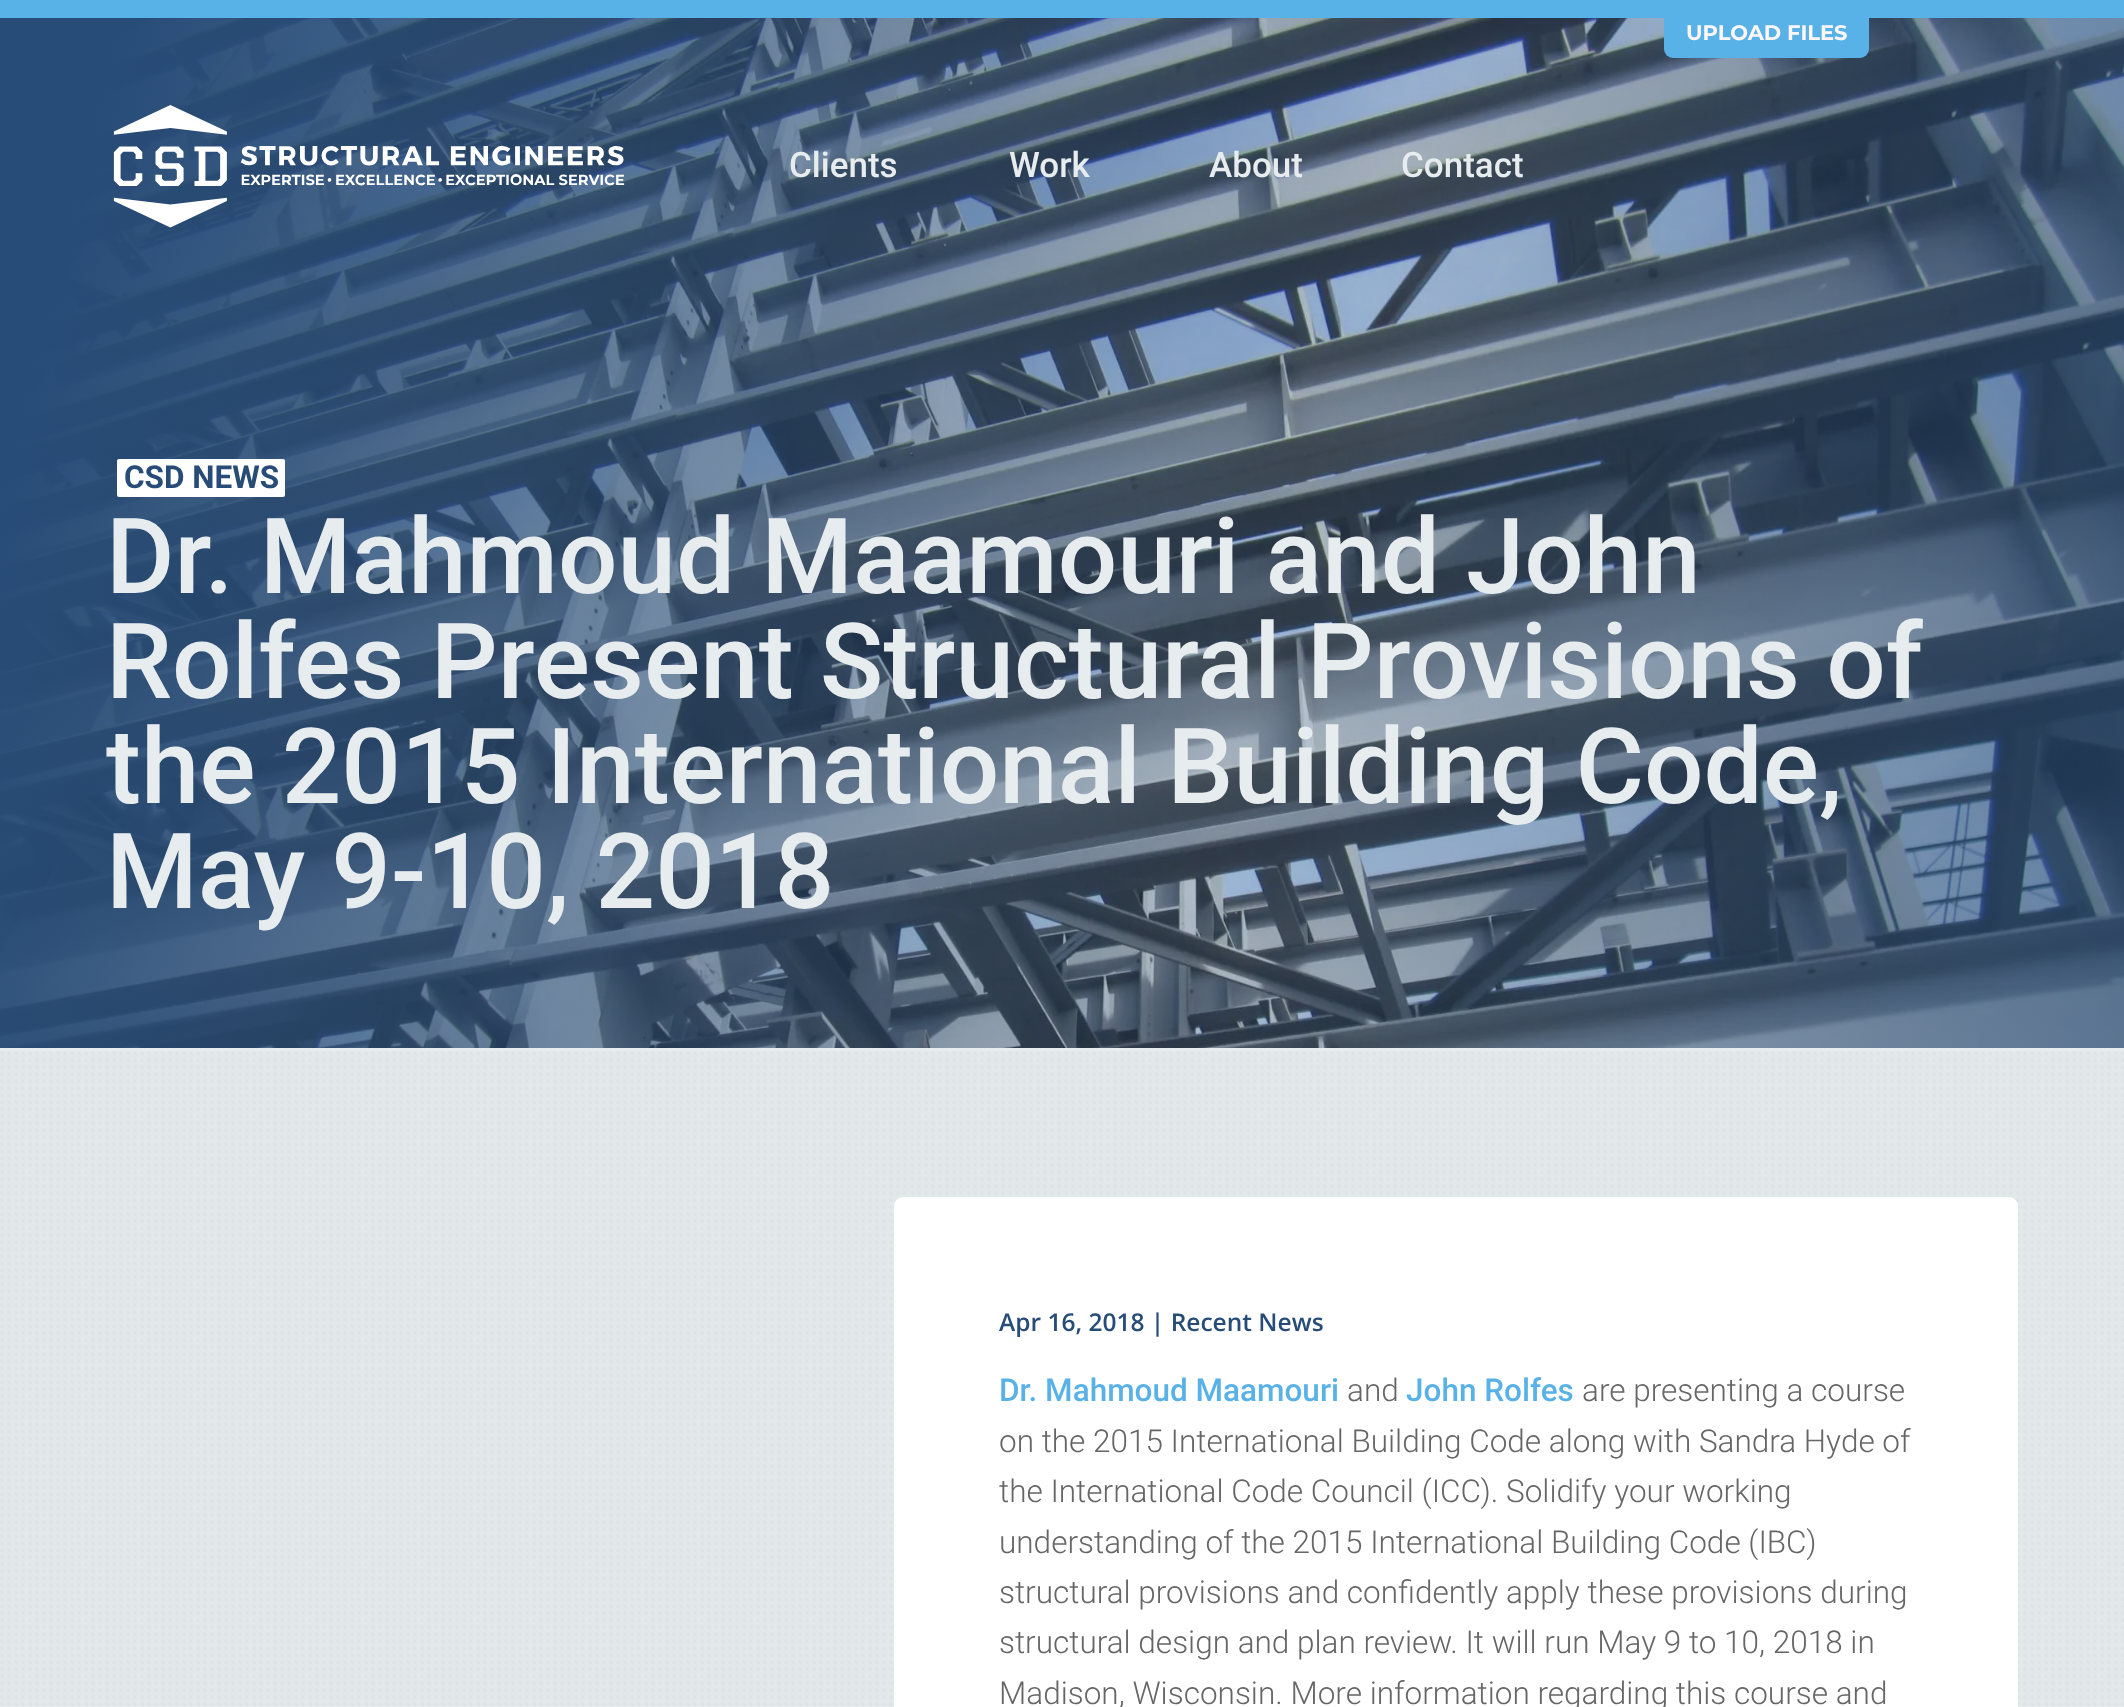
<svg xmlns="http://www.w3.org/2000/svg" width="2124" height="1707">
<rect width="100%" height="100%" fill="#fff"/>
<rect width="2124" height="18" fill="#59b2e7"/>
<image x="0" y="18" width="2124" height="1030" href="media/2.png"/>
<rect x="1664" y="9" width="205" height="49" rx="9" fill="#59b2e7"/>
<text x="1686" y="40" style="font-family:Montserrat;font-size:21px;font-weight:100;fill:#fff7f7">UPLOAD FILES</text>
<image x="113" y="105" width="512" height="123" href="media/1.png"/>
<text x="789" y="177" style="font-family:Roboto;font-size:35px;font-weight:500;fill:#e7ecef">Clients</text>
<text x="1009" y="177" style="font-family:Roboto;font-size:35px;font-weight:500;fill:#e7ecef">Work</text>
<text x="1209" y="177" style="font-family:Roboto;font-size:35px;font-weight:500;fill:#e7ecef">About</text>
<text x="1401" y="177" style="font-family:Roboto;font-size:35px;font-weight:500;fill:#e7ecef">Contact</text>
<rect x="117" y="459" width="168" height="38" rx="2" fill="#fff"/>
<text x="124" y="488" style="font-family:Roboto;font-size:31.5px;font-weight:bold;fill:#264c77">CSD NEWS</text>
<text x="106" y="593" style="font-family:Roboto;font-size:105px;font-weight:500;fill:#e7ecef">Dr. Mahmoud Maamouri and John</text>
<text x="106" y="698" style="font-family:Roboto;font-size:105px;font-weight:500;fill:#e7ecef">Rolfes Present Structural Provisions of</text>
<text x="106" y="803" style="font-family:Roboto;font-size:105px;font-weight:500;fill:#e7ecef">the 2015 International Building Code,</text>
<text x="106" y="908" style="font-family:Roboto;font-size:105px;font-weight:500;fill:#e7ecef">May 9-10, 2018</text>
<rect y="1048" width="2124" height="659" fill="#e7ecef"/>
<image x="0" y="1051" width="2124" height="655" href="media/3.png"/>
<rect x="894" y="1197" width="1124" height="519" rx="9" fill="#fff"/>
<text x="999" y="1331" style="font-family:Open Sans;font-size:24.5px;font-weight:600;fill:#264c77">Apr 16, 2018 | Recent News</text>
<text x="999" y="1401" style="font-family:Roboto;font-size:31.5px;font-weight:500;fill:#59b2e7">Dr. Mahmoud Maamouri</text>
<text x="1347" y="1401" style="font-family:Roboto;font-size:31.5px;font-weight:300;fill:#666">and</text>
<text x="1406" y="1401" style="font-family:Roboto;font-size:31.5px;font-weight:500;fill:#59b2e7">John Rolfes</text>
<text x="1582" y="1401" style="font-family:Roboto;font-size:31.5px;font-weight:300;fill:#666">are presenting a course</text>
<text x="999" y="1452" style="font-family:Roboto;font-size:31.5px;font-weight:300;fill:#666">on the 2015 International Building Code along with Sandra Hyde of</text>
<text x="999" y="1502" style="font-family:Roboto;font-size:31.5px;font-weight:300;fill:#666">the International Code Council (ICC). Solidify your working</text>
<text x="999" y="1553" style="font-family:Roboto;font-size:31.5px;font-weight:300;fill:#666">understanding of the 2015 International Building Code (IBC)</text>
<text x="999" y="1603" style="font-family:Roboto;font-size:31.5px;font-weight:300;fill:#666">structural provisions and confidently apply these provisions during</text>
<text x="999" y="1653" style="font-family:Roboto;font-size:31.5px;font-weight:300;fill:#666">structural design and plan review. It will run May 9 to 10, 2018 in</text>
<text x="999" y="1704" style="font-family:Roboto;font-size:31.5px;font-weight:300;fill:#666">Madison, Wisconsin. More information regarding this course and</text>
</svg>
